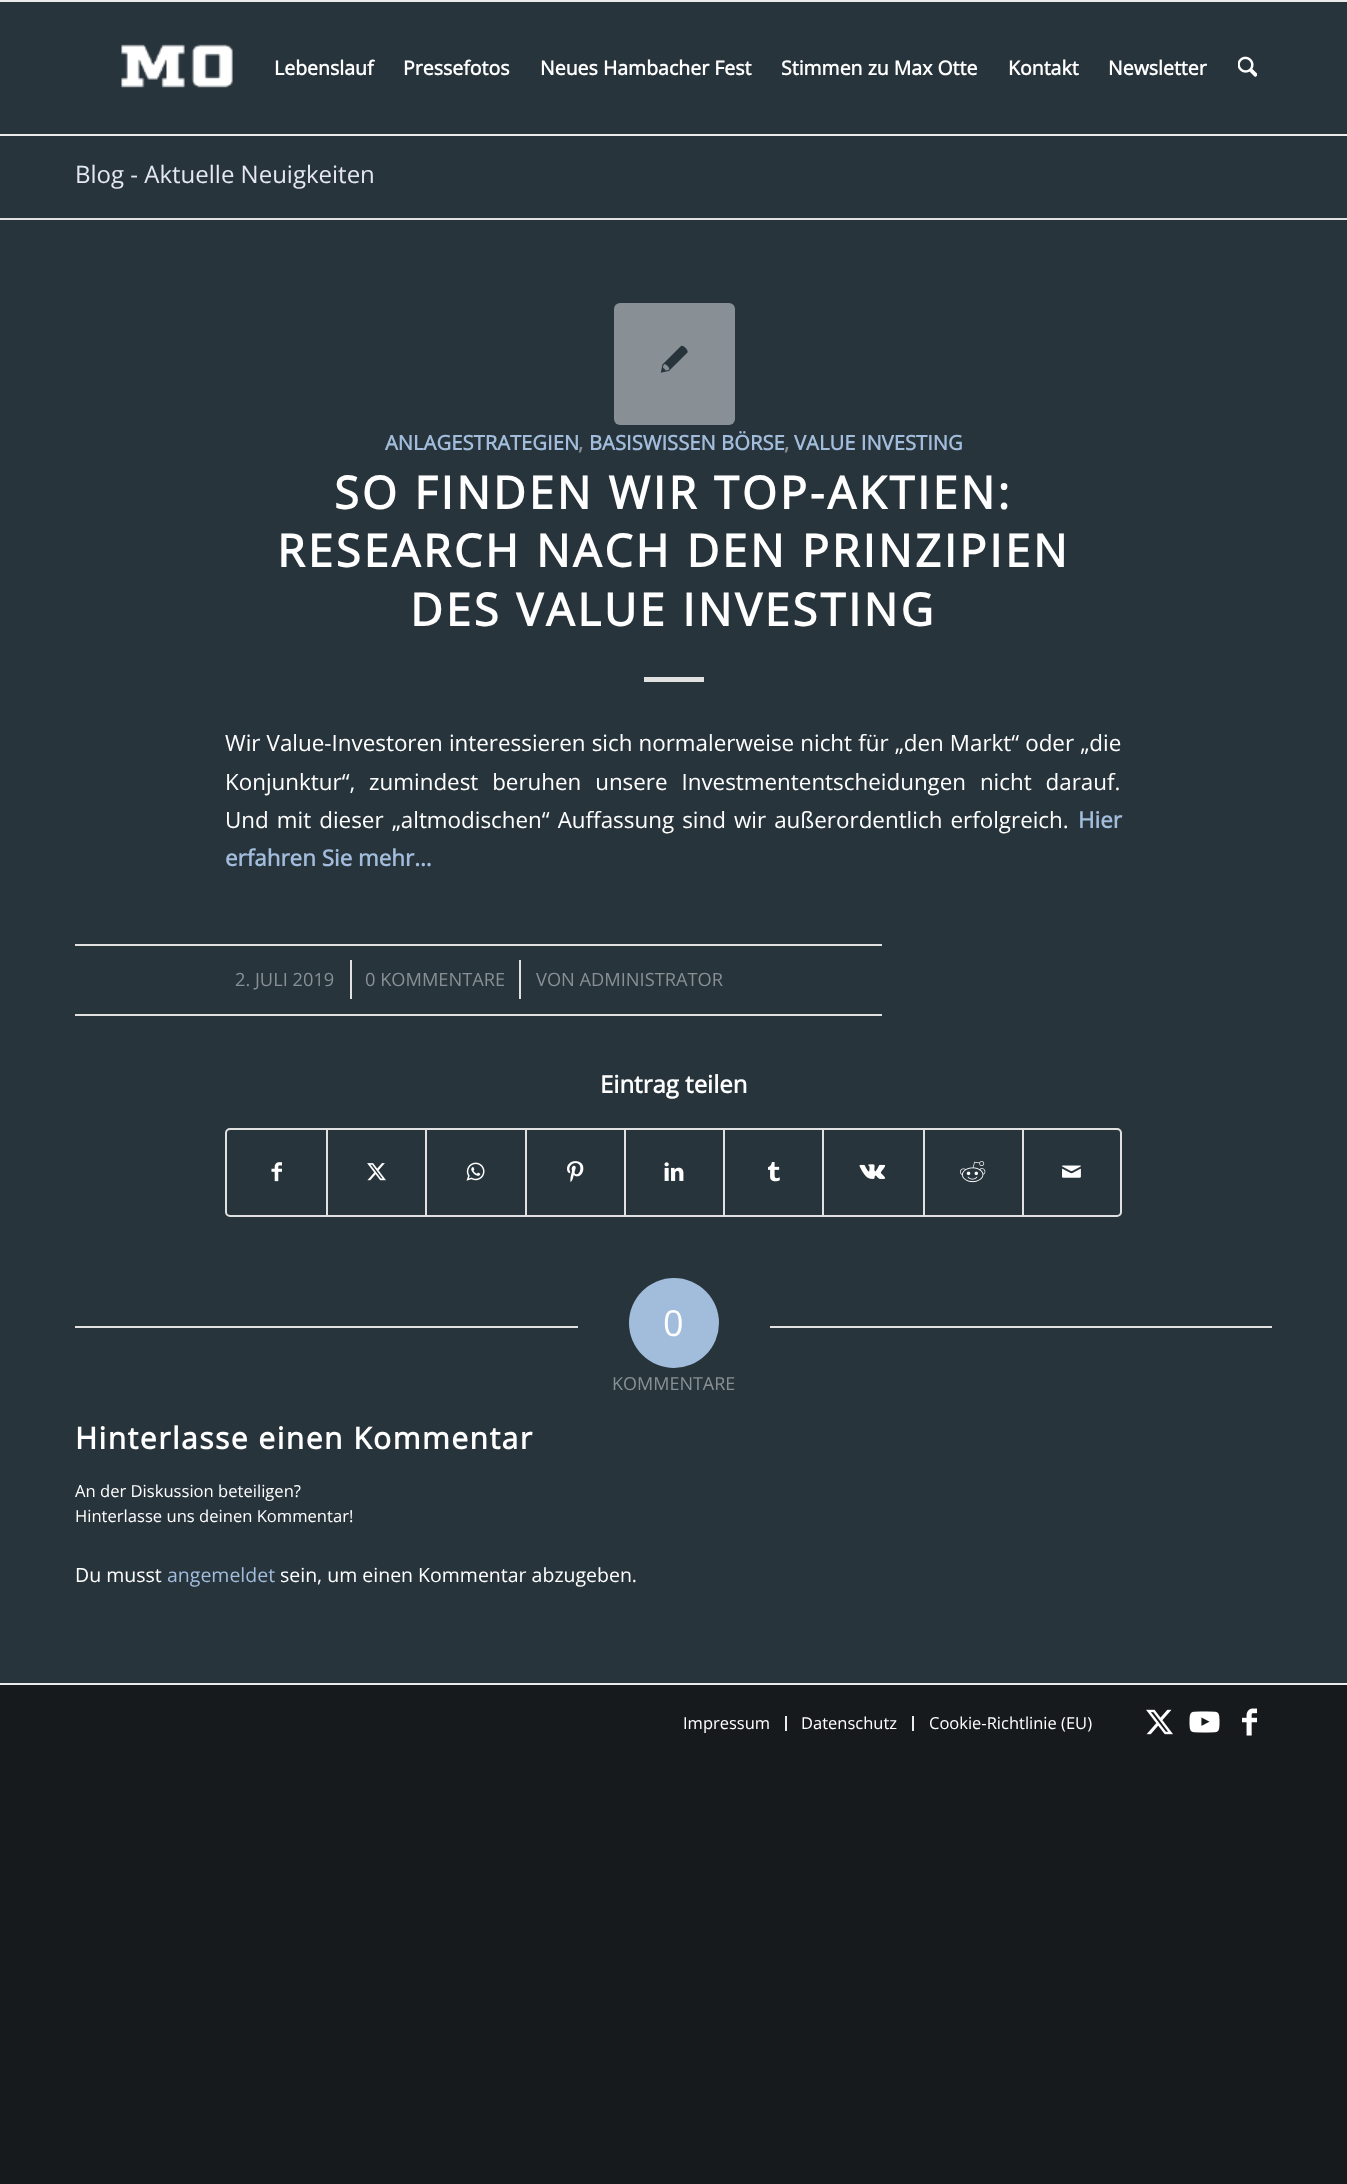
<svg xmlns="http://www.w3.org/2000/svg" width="1347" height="2184">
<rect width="100%" height="100%" fill="#161a1c"/>
<rect y="2" width="1347" height="1681" fill="#28343c"/>
<rect width="1347" height="2" fill="#ebebeb"/>
<rect y="134" width="1347" height="2" fill="#ebebeb"/>
<image x="121" y="44" width="112" height="44" href="media/1.png"/>
<text x="274" y="75" style="font-family:Open Sans;font-size:19.5px;font-weight:bold;fill:#fff">Lebenslauf</text>
<text x="403" y="75" style="font-family:Open Sans;font-size:19.5px;font-weight:bold;fill:#fff">Pressefotos</text>
<text x="540" y="75" style="font-family:Open Sans;font-size:19.5px;font-weight:bold;fill:#fff">Neues Hambacher Fest</text>
<text x="781" y="75" style="font-family:Open Sans;font-size:19.5px;font-weight:bold;fill:#fff">Stimmen zu Max Otte</text>
<text x="1008" y="75" style="font-family:Open Sans;font-size:19.5px;font-weight:bold;fill:#fff">Kontakt</text>
<text x="1108" y="75" style="font-family:Open Sans;font-size:19.5px;font-weight:bold;fill:#fff">Newsletter</text>
<image x="1238" y="56" width="19" height="21" href="media/2.png"/>
<text x="75" y="183" style="font-family:Open Sans;font-size:24px;fill:#e4e6f0">Blog - Aktuelle Neuigkeiten</text>
<rect y="218" width="1347" height="2" fill="#e1e1e1"/>
<rect x="614" y="303" width="121" height="122" rx="6" fill="#889095"/>
<image x="660" y="345" width="28" height="28" href="media/3.png"/>
<text x="385" y="450" style="font-family:Open Sans;font-size:20.25px;font-weight:bold;fill:#a2bddb">ANLAGESTRATEGIEN</text>
<text x="578" y="450" style="font-family:Open Sans;font-size:20.25px;font-weight:bold;fill:#889095">,</text>
<text x="589" y="450" style="font-family:Open Sans;font-size:20.25px;font-weight:bold;fill:#a2bddb">BASISWISSEN BÖRSE</text>
<text x="784" y="450" style="font-family:Open Sans;font-size:20.25px;font-weight:bold;fill:#889095">,</text>
<text x="794" y="450" style="font-family:Open Sans;font-size:20.25px;font-weight:bold;fill:#a2bddb">VALUE INVESTING</text>
<text x="334" y="509" style="font-family:Open Sans;font-size:45px;font-weight:bold;letter-spacing:3px;fill:#fff">SO FINDEN WIR TOP-AKTIEN:</text>
<text x="277" y="567" style="font-family:Open Sans;font-size:45px;font-weight:bold;letter-spacing:3px;fill:#fff">RESEARCH NACH DEN PRINZIPIEN</text>
<text x="410" y="626" style="font-family:Open Sans;font-size:45px;font-weight:bold;letter-spacing:3px;fill:#fff">DES VALUE INVESTING</text>
<rect x="644" y="677" width="60" height="5" fill="#e1e1e1"/>
<text x="225" y="751" word-spacing="0.25" style="font-family:Open Sans;font-size:22.4px;fill:#fff">Wir Value-Investoren interessieren sich normalerweise nicht für „den Markt“ oder „die</text>
<text x="225" y="790" word-spacing="8" style="font-family:Open Sans;font-size:22.4px;fill:#fff">Konjunktur“, zumindest beruhen unsere Investmententscheidungen nicht darauf.</text>
<text x="225" y="828" word-spacing="2.25" style="font-family:Open Sans;font-size:22.4px;fill:#fff">Und mit dieser „altmodischen“ Auffassung sind wir außerordentlich erfolgreich.</text>
<text x="1078" y="828" style="font-family:Open Sans;font-size:22.4px;font-weight:bold;fill:#a2bddb">Hier</text>
<text x="225" y="866" style="font-family:Open Sans;font-size:22.4px;font-weight:bold;fill:#a2bddb">erfahren Sie mehr…</text>
<rect x="75" y="944" width="807" height="2" fill="#e1e1e1"/>
<rect x="75" y="1014" width="807" height="2" fill="#e1e1e1"/>
<text x="235" y="986" style="font-family:Open Sans;font-size:18.25px;fill:#889095">2. JULI 2019</text>
<rect x="350" y="960" width="2" height="39" fill="#e1e1e1"/>
<text x="365" y="986" style="font-family:Open Sans;font-size:18.25px;fill:#889095">0 KOMMENTARE</text>
<rect x="519" y="960" width="2" height="39" fill="#e1e1e1"/>
<text x="536" y="986" style="font-family:Open Sans;font-size:18.25px;fill:#889095">VON ADMINISTRATOR</text>
<text x="600" y="1093" style="font-family:Open Sans;font-size:24px;font-weight:bold;fill:#fff">Eintrag teilen</text>
<rect x="226" y="1129" width="895" height="87" rx="4" fill="none" stroke="#e1e1e1" stroke-width="2"/>
<image x="271" y="1162" width="11" height="20" href="media/4.png"/>
<rect x="326" y="1130" width="2" height="85" fill="#e1e1e1"/>
<image x="367" y="1163" width="19" height="18" href="media/5.png"/>
<rect x="425" y="1130" width="2" height="85" fill="#e1e1e1"/>
<image x="466" y="1162" width="19" height="19" href="media/6.png"/>
<rect x="525" y="1130" width="2" height="85" fill="#e1e1e1"/>
<image x="567" y="1161" width="17" height="21" href="media/7.png"/>
<rect x="624" y="1130" width="2" height="85" fill="#e1e1e1"/>
<image x="664" y="1162" width="20" height="19" href="media/8.png"/>
<rect x="723" y="1130" width="2" height="85" fill="#e1e1e1"/>
<image x="768" y="1162" width="12" height="20" href="media/9.png"/>
<rect x="822" y="1130" width="2" height="85" fill="#e1e1e1"/>
<image x="859" y="1164" width="27" height="15" href="media/10.png"/>
<rect x="923" y="1130" width="2" height="85" fill="#e1e1e1"/>
<image x="960" y="1161" width="26" height="22" href="media/11.png"/>
<rect x="1022" y="1130" width="2" height="85" fill="#e1e1e1"/>
<image x="1062" y="1165" width="19" height="13" href="media/12.png"/>
<rect x="75" y="1326" width="503" height="2" fill="#e1e1e1"/>
<circle cx="674" cy="1323" r="45" fill="#a2bddb"/>
<text x="663" y="1336" style="font-family:Open Sans;font-size:36px;fill:#fff">0</text>
<rect x="770" y="1326" width="502" height="2" fill="#e1e1e1"/>
<text x="612" y="1390" style="font-family:Open Sans;font-size:18px;fill:#889095">KOMMENTARE</text>
<text x="75" y="1449" style="font-family:Open Sans;font-size:30px;font-weight:bold;letter-spacing:1.5px;fill:#fff">Hinterlasse einen Kommentar</text>
<text x="75" y="1497" style="font-family:Open Sans;font-size:16.6px;fill:#fff">An der Diskussion beteiligen?</text>
<text x="75" y="1522" style="font-family:Open Sans;font-size:16.6px;fill:#fff">Hinterlasse uns deinen Kommentar!</text>
<text x="75" y="1582" style="font-family:Open Sans;font-size:19.5px;fill:#fff">Du musst</text>
<text x="167" y="1582" style="font-family:Open Sans;font-size:19.5px;fill:#a2bddb">angemeldet</text>
<text x="280" y="1582" style="font-family:Open Sans;font-size:19.5px;fill:#fff">sein, um einen Kommentar abzugeben.</text>
<rect y="1683" width="1347" height="2" fill="#ebebeb"/>
<text x="683" y="1729" style="font-family:Open Sans;font-size:16.5px;fill:#fff">Impressum</text>
<rect x="785" y="1716" width="2" height="15" fill="#ebebeb"/>
<text x="801" y="1729" style="font-family:Open Sans;font-size:16.5px;fill:#fff">Datenschutz</text>
<rect x="912" y="1716" width="2" height="15" fill="#ebebeb"/>
<text x="929" y="1729" style="font-family:Open Sans;font-size:16.5px;fill:#fff">Cookie-Richtlinie (EU)</text>
<image x="1146" y="1709" width="27" height="26" href="media/13.png"/>
<image x="1189" y="1711" width="31" height="22" href="media/14.png"/>
<image x="1242" y="1708" width="15" height="28" href="media/15.png"/>
</svg>
